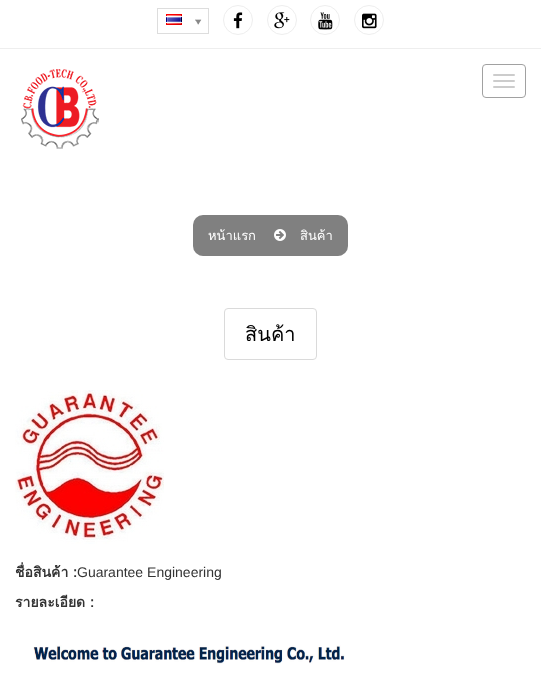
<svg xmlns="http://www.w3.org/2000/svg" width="541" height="695">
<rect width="100%" height="100%" fill="#fff"/>
<rect y="48" width="541" height="1" fill="#eee"/>
<rect x="157.5" y="8.5" width="51" height="25" fill="none" stroke="#ddd"/>
<image x="166" y="14" width="16" height="11" href="media/1.png"/>
<image x="195" y="19" width="7" height="6" href="media/2.png"/>
<circle cx="238" cy="20" r="14.5" fill="none" stroke="#eee"/>
<image x="233" y="12" width="10" height="17" href="media/3.png"/>
<circle cx="282" cy="20" r="14.5" fill="none" stroke="#eee"/>
<image x="274" y="12" width="16" height="17" href="media/4.png"/>
<circle cx="325" cy="20" r="14.5" fill="none" stroke="#eee"/>
<image x="318" y="12" width="15" height="18" href="media/5.png"/>
<circle cx="369" cy="20" r="14.5" fill="none" stroke="#eee"/>
<image x="362" y="13" width="15" height="16" href="media/6.png"/>
<image x="21" y="69" width="78" height="80" href="media/7.png"/>
<rect x="482.5" y="64.5" width="43" height="33" rx="3.5" fill="none" stroke="#a1a1a1"/>
<rect x="493" y="74" width="22" height="2" rx="1" fill="#ccc"/>
<rect x="493" y="80" width="22" height="2" rx="1" fill="#ccc"/>
<rect x="493" y="86" width="22" height="2" rx="1" fill="#ccc"/>
<rect x="193" y="215" width="155" height="41" rx="10" fill="#808080"/>
<text x="208" y="240" style="font-family:Loma;font-size:13px;fill:#fff">หน้าแรก</text>
<image x="274" y="229" width="12" height="12" href="media/8.png"/>
<text x="300" y="240" style="font-family:Loma;font-size:13px;fill:#fff">สินค้า</text>
<rect x="224.5" y="308.5" width="92" height="51" rx="3.5" fill="none" stroke="#dadada"/>
<text x="245" y="341" style="font-family:Loma;font-size:20px;fill:#000">สินค้า</text>
<image x="15" y="390" width="149" height="154" href="media/9.png"/>
<text x="15" y="577" style="font-family:Loma;font-size:14px;font-weight:bold;fill:#333">ชื่อสินค้า :</text>
<text x="77" y="577" style="font-family:Liberation Sans;font-size:14px;fill:#333">Guarantee Engineering</text>
<text x="15" y="607" style="font-family:Loma;font-size:14px;font-weight:bold;fill:#333">รายละเอียด :</text>
<image x="33" y="645" width="312" height="19" href="media/10.png"/>
</svg>
